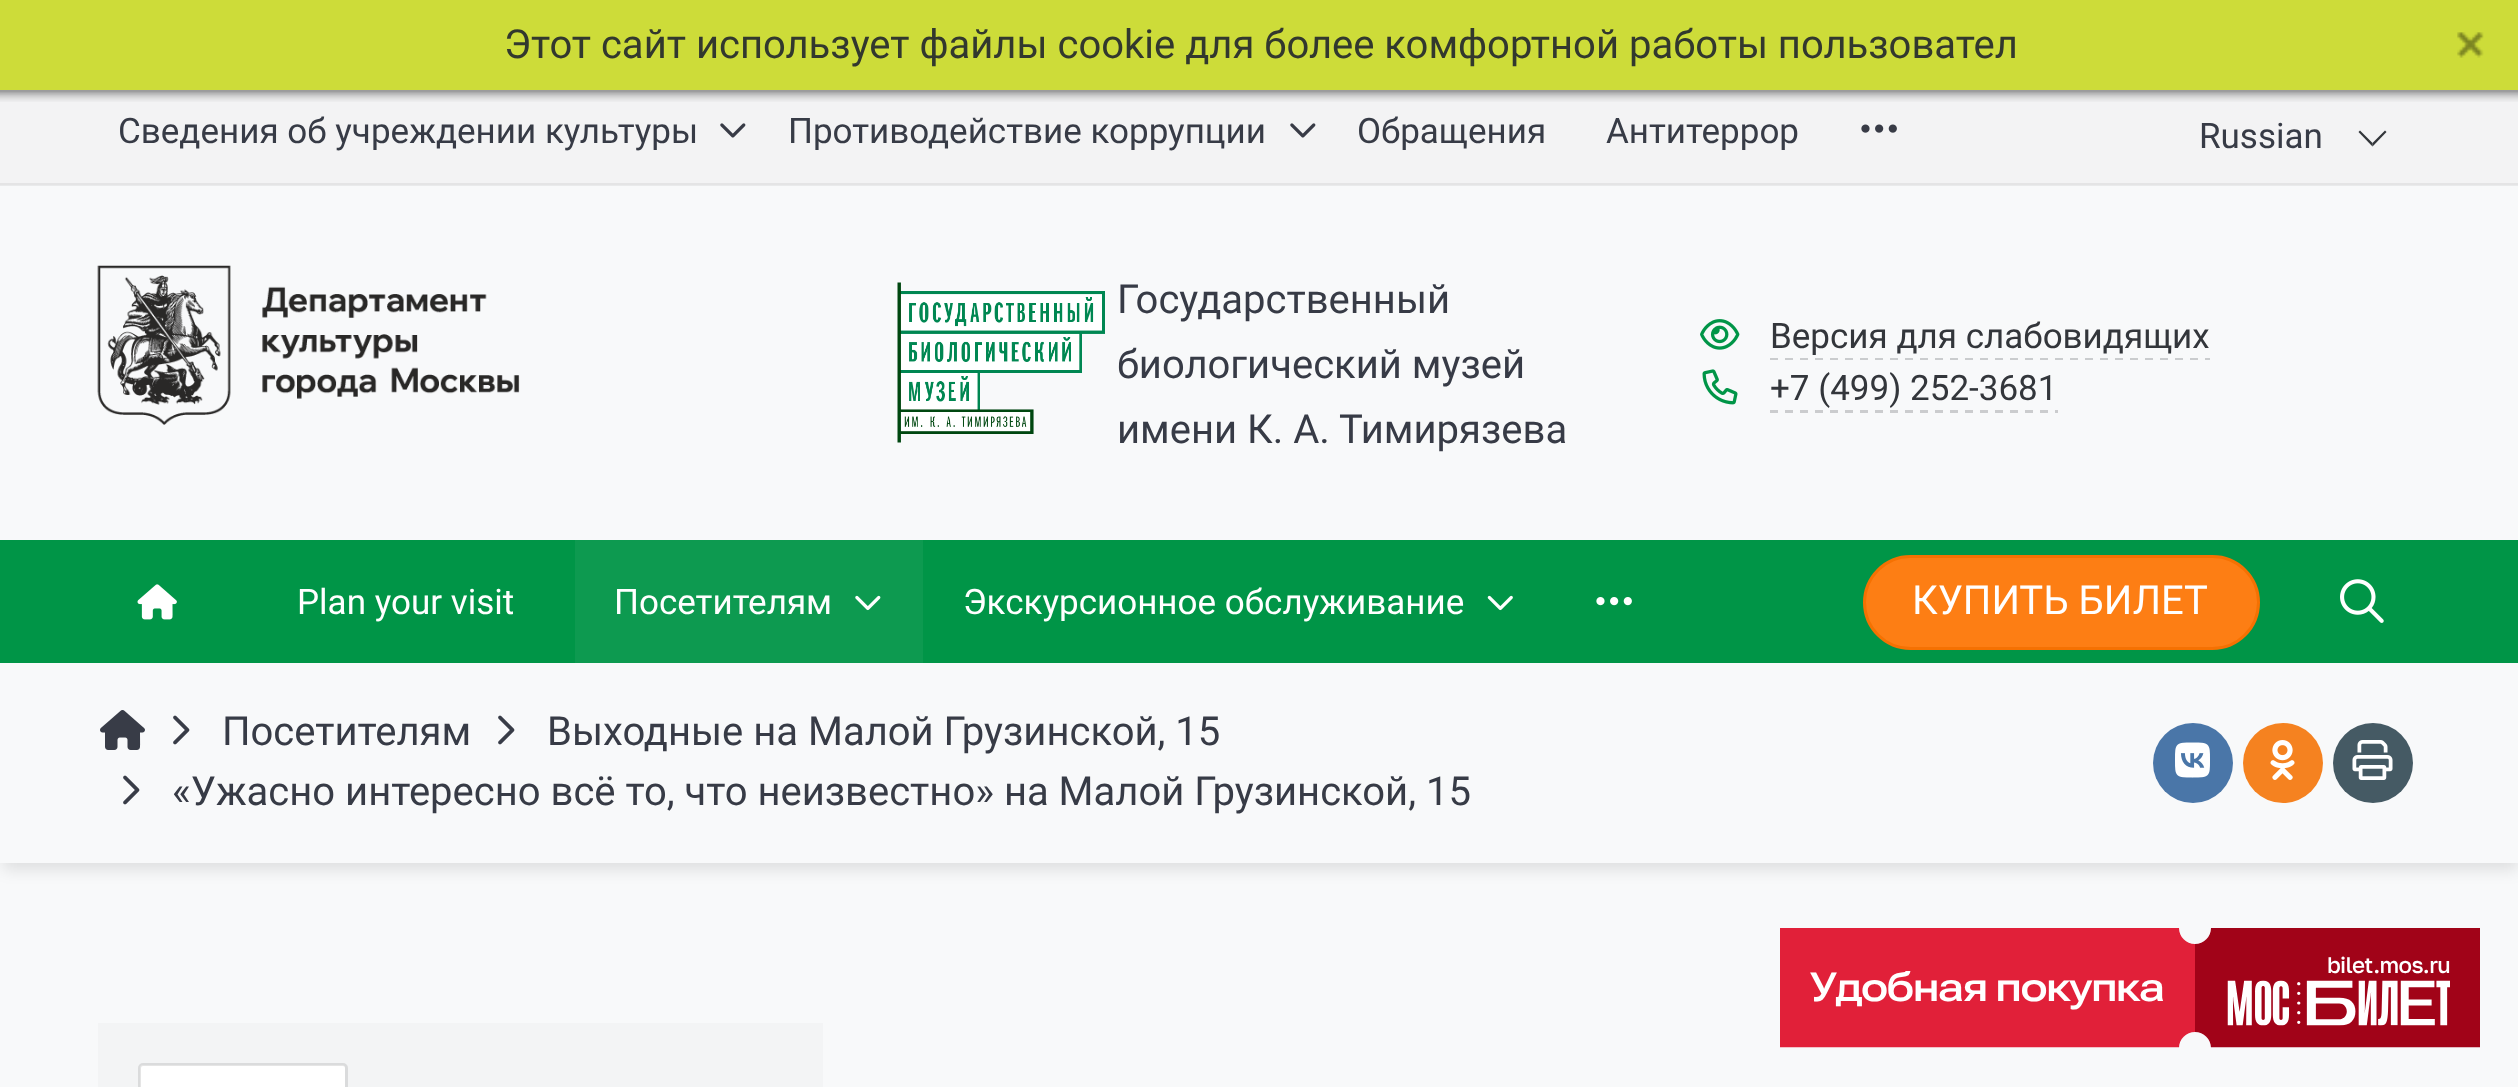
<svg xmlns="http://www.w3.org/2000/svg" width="2518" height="1087">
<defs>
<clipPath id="clip1"><path d="M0 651h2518v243h-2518zm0 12h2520v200h-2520z" clip-rule="evenodd"/></clipPath>
</defs>
<rect width="100%" height="100%" fill="#f8f9fa"/>
<rect y="185" width="2518" height="1" fill="#e9eaeb"/>
<rect width="2518" height="90" fill="#cddc39"/>
<text x="504" y="58" style="font-family:Roboto;font-size:40px;fill:#32382e">Этот сайт использует файлы cookie для более комфортной работы пользовател</text>
<image x="2457" y="32" width="27" height="26" href="media/1.png"/>
<rect y="90" width="2518" height="93" fill="#f3f3f4"/>
<image x="0" y="90" width="2518" height="12" href="media/2.png"/>
<rect y="183" width="2518" height="2" fill="#e4e4e5"/>
<text x="118" y="143" style="font-family:Roboto;font-size:35px;fill:#373b46">Сведения об учреждении культуры</text>
<image x="720" y="123" width="26" height="15" href="media/3.png"/>
<text x="788" y="143" style="font-family:Roboto;font-size:35px;fill:#373b46">Противодействие коррупции</text>
<image x="1290" y="123" width="26" height="15" href="media/3.png"/>
<text x="1357" y="143" style="font-family:Roboto;font-size:35px;fill:#373b46">Обращения</text>
<text x="1606" y="143" style="font-family:Roboto;font-size:35px;fill:#373b46">Антитеррор</text>
<image x="1861" y="124" width="36" height="9" href="media/4.png"/>
<text x="2199" y="148" style="font-family:Roboto;font-size:35px;fill:#373b46">Russian</text>
<path d="M2386.5 132l-14 14.5v-3.5l12.5-12.5z" fill="#32353a"/>
<path d="M2372.5 146.5l-14-14.5l1.5-1.5l12.5 12.5z" fill="#15191ede"/>
<image x="97" y="265" width="423" height="160" href="media/5.png"/>
<image x="897" y="282" width="208" height="161" href="media/6.png"/>
<text x="1117" y="313" style="font-family:Roboto;font-size:40px;fill:#373b46">Государственный</text>
<text x="1117" y="378" style="font-family:Roboto;font-size:40px;fill:#373b46">биологический музей</text>
<text x="1117" y="443" style="font-family:Roboto;font-size:40px;fill:#373b46">имени К. А. Тимирязева</text>
<image x="1700" y="319" width="40" height="31" href="media/7.png"/>
<text x="1770" y="348" style="font-family:Roboto;font-size:35px;fill:#33363b">Версия для слабовидящих</text>
<image x="1770" y="358" width="440" height="2" href="media/8.png"/>
<image x="1702" y="369" width="36" height="36" href="media/9.png"/>
<text x="1770" y="400" style="font-family:Roboto;font-size:35px;fill:#33363b">+7 (499) 252-3681</text>
<rect x="1770" y="410" width="8" height="3" fill="#cbccce"/>
<rect x="1785" y="410" width="8" height="3" fill="#cbccce"/>
<rect x="1800" y="410" width="8" height="3" fill="#cbccce"/>
<rect x="1815" y="410" width="8" height="3" fill="#cbccce"/>
<rect x="1830" y="410" width="8" height="3" fill="#cbccce"/>
<rect x="1845" y="410" width="8" height="3" fill="#cbccce"/>
<rect x="1860" y="410" width="8" height="3" fill="#cbccce"/>
<rect x="1875" y="410" width="8" height="3" fill="#cbccce"/>
<rect x="1890" y="410" width="8" height="3" fill="#cbccce"/>
<rect x="1905" y="410" width="8" height="3" fill="#cbccce"/>
<rect x="1920" y="410" width="8" height="3" fill="#cbccce"/>
<rect x="1935" y="410" width="8" height="3" fill="#cbccce"/>
<rect x="1950" y="410" width="8" height="3" fill="#cbccce"/>
<rect x="1965" y="410" width="8" height="3" fill="#cbccce"/>
<rect x="1980" y="410" width="8" height="3" fill="#cbccce"/>
<rect x="1995" y="410" width="8" height="3" fill="#cbccce"/>
<rect x="2010" y="410" width="8" height="3" fill="#cbccce"/>
<rect x="2025" y="410" width="8" height="3" fill="#cbccce"/>
<rect x="2040" y="410" width="8" height="3" fill="#cbccce"/>
<rect x="2055" y="410" width="3" height="3" fill="#cbccce"/>
<g clip-path="url(#clip1)">
<rect x="3" y="675" width="2515" height="195" fill="#0000001a" filter="blur(7.5px)"/>
</g>
<rect y="540" width="2518" height="123" fill="#009547"/>
<image x="137" y="584" width="40" height="36" href="media/10.png"/>
<text x="297" y="614" style="font-family:Roboto;font-size:35px;fill:#fff">Plan your visit</text>
<image x="855" y="595" width="26" height="16" href="media/11.png"/>
<rect x="575" y="540" width="348" height="123" fill="#ffffff0d"/>
<text x="614" y="614" style="font-family:Roboto;font-size:35px;fill:#fff">Посетителям</text>
<text x="963" y="614" style="font-family:Roboto;font-size:35px;fill:#fff">Экскурсионное обслуживание</text>
<image x="1487" y="595" width="26" height="16" href="media/12.png"/>
<image x="1596" y="597" width="36" height="9" href="media/13.png"/>
<rect x="1864.5" y="556.5" width="394" height="92" rx="46" fill="#fd7e14" stroke="#f57102" stroke-width="3"/>
<text x="1912" y="614" style="font-family:Roboto;font-size:40px;fill:#fff">КУПИТЬ БИЛЕТ</text>
<image x="2340" y="579" width="44" height="44" href="media/14.png"/>
<image x="100" y="710" width="45" height="40" href="media/15.png"/>
<image x="173" y="715" width="17" height="30" href="media/16.png"/>
<text x="222" y="745" style="font-family:Roboto;font-size:40px;fill:#373b46">Посетителям</text>
<image x="498" y="715" width="17" height="30" href="media/16.png"/>
<text x="547" y="745" style="font-family:Roboto;font-size:40px;fill:#373b46">Выходные на Малой Грузинской, 15</text>
<image x="123" y="775" width="17" height="30" href="media/16.png"/>
<text x="172" y="805" style="font-family:Roboto;font-size:40px;fill:#373b46">«Ужасно интересно всё то, что неизвестно» на Малой Грузинской, 15</text>
<circle cx="2193" cy="763" r="40" fill="#4a76a8"/>
<image x="2175" y="742" width="35" height="36" href="media/17.png"/>
<circle cx="2283" cy="763" r="40" fill="#f58220"/>
<image x="2270" y="740" width="25" height="40" href="media/18.png"/>
<circle cx="2373" cy="763" r="40" fill="#455a64"/>
<image x="2352" y="740" width="41" height="40" href="media/19.png"/>
<rect x="98" y="1023" width="725" height="64" fill="#f3f4f5"/>
<rect x="140" y="1065" width="205" height="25" rx="2.5" fill="#fff"/>
<rect x="139.5" y="1064.5" width="207" height="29" rx="3.5" fill="none" stroke="#0000001a" stroke-width="3"/>
<image x="1780" y="928" width="700" height="120" href="media/20.png"/>
</svg>
